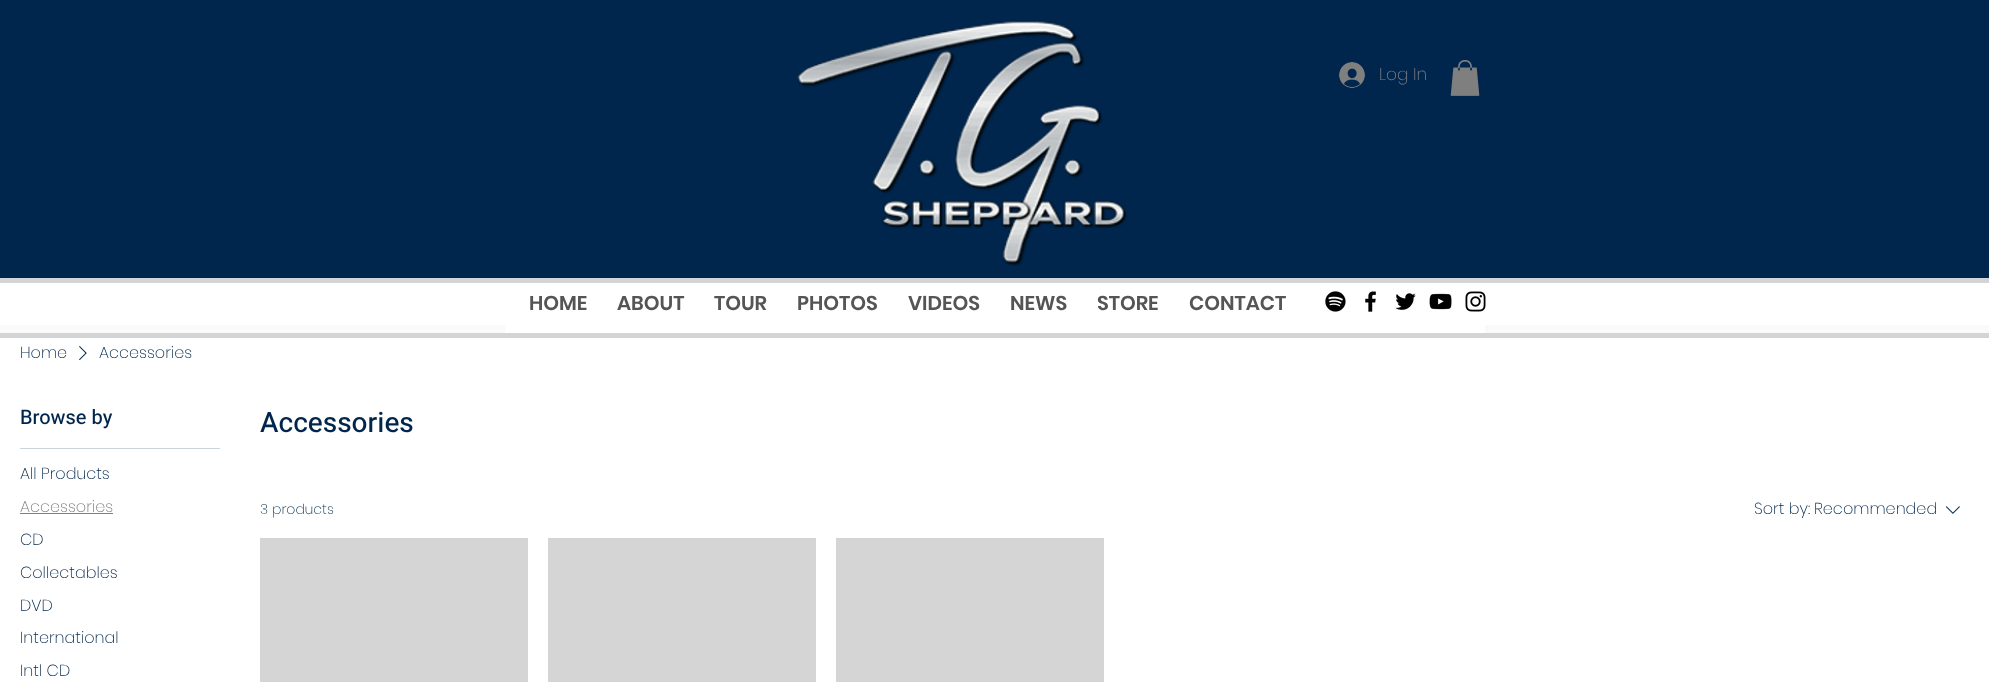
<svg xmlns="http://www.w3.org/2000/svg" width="1989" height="682">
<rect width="100%" height="100%" fill="#fafafa"/>
<rect width="1989" height="278" fill="#00264d"/>
<image x="797" y="20" width="330" height="246" href="media/1.png"/>
<image x="1339" y="62" width="26" height="26" href="media/2.png"/>
<text x="1379" y="80" style="font-family:Poppins;font-size:17px;font-weight:200;fill:#7f7f80">Log In</text>
<image x="1450" y="60" width="30" height="36" href="media/3.png"/>
<rect y="278" width="1989" height="5" fill="#d3d4d6"/>
<rect y="283" width="1989" height="42" fill="#fff"/>
<text x="529" y="310" style="font-family:Poppins;font-size:20px;font-weight:600;fill:#545556">HOME</text>
<text x="617" y="310" style="font-family:Poppins;font-size:20px;font-weight:600;fill:#545556">ABOUT</text>
<text x="714" y="310" style="font-family:Poppins;font-size:20px;font-weight:600;fill:#545556">TOUR</text>
<text x="797" y="310" style="font-family:Poppins;font-size:20px;font-weight:600;fill:#545556">PHOTOS</text>
<text x="908" y="310" style="font-family:Poppins;font-size:20px;font-weight:600;fill:#545556">VIDEOS</text>
<text x="1010" y="310" style="font-family:Poppins;font-size:20px;font-weight:600;fill:#545556">NEWS</text>
<text x="1097" y="310" style="font-family:Poppins;font-size:20px;font-weight:600;fill:#545556">STORE</text>
<text x="1189" y="310" style="font-family:Poppins;font-size:20px;font-weight:600;fill:#545556">CONTACT</text>
<image x="1325" y="291" width="21" height="21" href="media/4.png"/>
<image x="1365" y="291" width="11" height="21" href="media/5.png"/>
<image x="1395" y="293" width="21" height="17" href="media/6.png"/>
<image x="1429" y="293" width="23" height="17" href="media/7.png"/>
<image x="1465" y="291" width="21" height="21" href="media/8.png"/>
<rect y="333" width="1989" height="5" fill="#d3d4d6"/>
<rect x="505" y="325" width="980" height="8" fill="#fff"/>
<rect y="338" width="1989" height="344" fill="#fff"/>
<text x="20" y="358" style="font-family:Poppins;font-size:16px;font-weight:200;fill:#00264d">Home</text>
<image x="79" y="346" width="8" height="14" href="media/9.png"/>
<text x="99" y="358" style="font-family:Poppins;font-size:16px;font-weight:200;fill:#00264d">Accessories</text>
<rect x="20" y="448" width="200" height="1" fill="#ccd4db"/>
<text x="20" y="424" style="font-family:Heebo;font-size:20px;font-weight:500;fill:#00264d">Browse by</text>
<text x="20" y="479" style="font-family:Poppins;font-size:16px;font-weight:200;fill:#00264d">All Products</text>
<text x="20" y="512" style="font-family:Poppins;font-size:16px;font-weight:200;fill:#7f7f80">Accessories</text>
<rect x="20" y="513" width="93" height="1" fill="#7f7f80"/>
<text x="20" y="545" style="font-family:Poppins;font-size:16px;font-weight:200;fill:#00264d">CD</text>
<text x="20" y="578" style="font-family:Poppins;font-size:16px;font-weight:200;fill:#00264d">Collectables</text>
<text x="20" y="611" style="font-family:Poppins;font-size:16px;font-weight:200;fill:#00264d">DVD</text>
<text x="20" y="643" style="font-family:Poppins;font-size:16px;font-weight:200;fill:#00264d">International</text>
<text x="20" y="676" style="font-family:Poppins;font-size:16px;font-weight:200;fill:#00264d">Intl CD</text>
<text x="260" y="432" style="font-family:Heebo;font-size:28px;font-weight:500;fill:#00264d">Accessories</text>
<text x="260" y="514" style="font-family:Poppins;font-size:14px;font-weight:200;fill:#03324e">3 products</text>
<text x="1754" y="514" style="font-family:Poppins;font-size:16px;font-weight:200;fill:#00264d">Sort by:</text>
<text x="1814" y="514" style="font-family:Poppins;font-size:16px;font-weight:200;fill:#00264d">Recommended</text>
<image x="1945" y="506" width="15" height="8" href="media/10.png"/>
<rect x="260" y="538" width="268" height="144" fill="#d5d5d5"/>
<rect x="548" y="538" width="268" height="144" fill="#d5d5d5"/>
<rect x="836" y="538" width="268" height="144" fill="#d5d5d5"/>
</svg>
